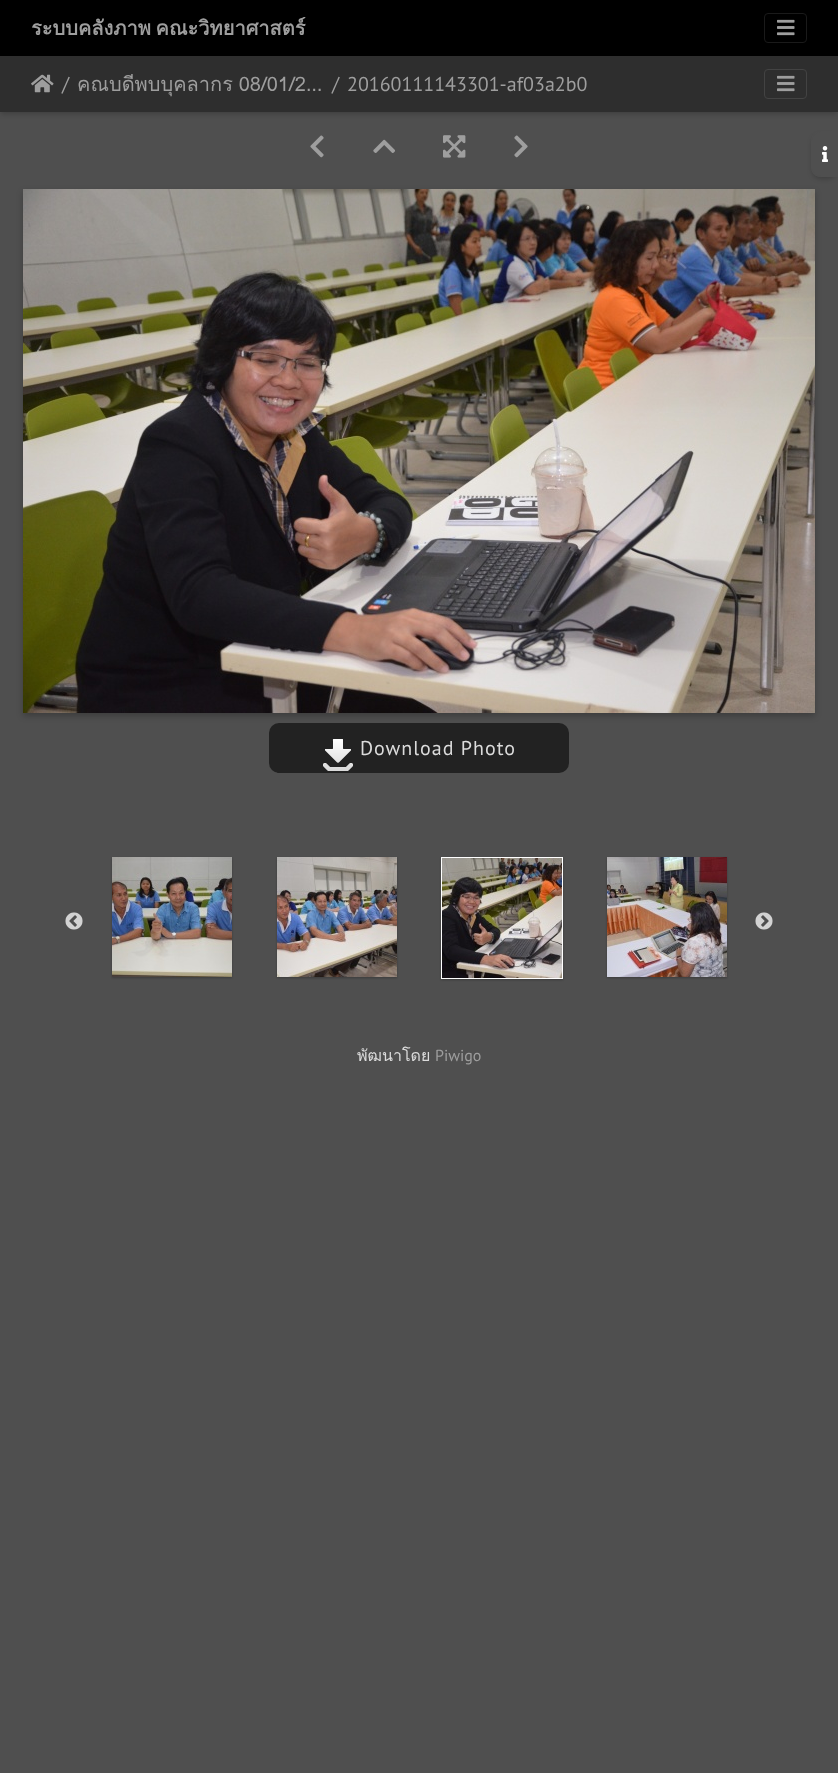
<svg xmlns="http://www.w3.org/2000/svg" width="838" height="1773">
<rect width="100%" height="100%" fill="#4f4f4f"/>
<rect x="1" y="60" width="836" height="54" fill="#00000033" filter="blur(2.5px)"/>
<rect width="838" height="56" fill="#000"/>
<text x="31" y="35" word-spacing="-2" style="font-family:Loma;font-size:20px;font-weight:bold;fill:#9e9e9e">ระบบคลังภาพ คณะวิทยาศาสตร์</text>
<rect x="764.5" y="13.5" width="42" height="29" rx="3.5" fill="none" stroke="#1a1a1a"/>
<image x="777" y="19" width="18" height="17" href="media/1.png"/>
<rect y="56" width="838" height="56" fill="#2e2e2e"/>
<image x="31" y="74" width="23" height="19" href="media/2.png"/>
<text x="62" y="91" style="font-family:PT Sans;font-size:20px;fill:#9e9e9e">/</text>
<text x="77" y="91" word-spacing="-1" style="font-family:Loma;font-size:20px;fill:#9e9e9e">คณบดีพบบุคลากร 08/01/2…</text>
<text x="332" y="91" style="font-family:PT Sans;font-size:20px;fill:#9e9e9e">/</text>
<text x="347" y="91" style="font-family:PT Sans;font-size:20px;fill:#9e9e9e">20160111143301-af03a2b0</text>
<rect x="764.5" y="69.5" width="42" height="29" rx="3.5" fill="none" stroke="#434343"/>
<image x="777" y="75" width="18" height="17" href="media/3.png"/>
<image x="310" y="135" width="14" height="23" href="media/4.png"/>
<image x="373" y="139" width="22" height="14" href="media/5.png"/>
<image x="443" y="135" width="23" height="23" href="media/6.png"/>
<image x="514" y="135" width="14" height="23" href="media/7.png"/>
<rect x="812" y="135" width="25" height="44" rx="9" fill="#00000033" filter="blur(2.5px)"/>
<path d="M821 131h17v46h-17c-5.5 0-10-4.5-10-10v-26c0-5.5 4.5-10 10-10z" fill="#4f4f4f"/>
<path d="M821 131h17v46h-17c-6 0-10-4-10-10v-26c0-6 4-10 10-10zm0 1h17v44h-17c-5 0-9-4-9-9v-26c0-5 4-9 9-9z" fill="#4f4f4f" fill-rule="evenodd"/>
<image x="822" y="146" width="6" height="16" href="media/8.png"/>
<rect x="269" y="723" width="300" height="50" rx="10" fill="#222"/>
<rect x="23" y="192" width="792" height="524" fill="#0000003b" filter="blur(3px)"/>
<image x="23" y="189" width="792" height="524" href="media/9.png"/>
<image x="323" y="739" width="30" height="32" href="media/10.png"/>
<text x="360" y="755" style="font-family:PT Sans;font-size:20px;letter-spacing:1px;fill:#dbdbdb">Download Photo</text>
<image x="65" y="912" width="18" height="18" href="media/11.png"/>
<rect x="112" y="858" width="120" height="120" fill="#0000003d" filter="blur(1px)"/>
<image x="112" y="857" width="120" height="120" href="media/12.png"/>
<rect x="277" y="858" width="120" height="120" fill="#0000003d" filter="blur(1px)"/>
<image x="277" y="857" width="120" height="120" href="media/13.png"/>
<rect x="441" y="858" width="122" height="122" fill="#0000003d" filter="blur(1px)"/>
<rect x="441.5" y="857.5" width="121" height="121" fill="none" stroke="#fff"/>
<image x="442" y="858" width="120" height="120" href="media/14.png"/>
<rect x="607" y="858" width="120" height="120" fill="#0000003d" filter="blur(1px)"/>
<image x="607" y="857" width="120" height="120" href="media/15.png"/>
<image x="755" y="912" width="18" height="18" href="media/16.png"/>
<text x="357" y="1061" style="font-family:Loma;font-size:16px;fill:#dbdbdb">พัฒนาโดย</text>
<text x="435" y="1061" style="font-family:PT Sans;font-size:16px;fill:#9e9e9e">Piwigo</text>
</svg>
